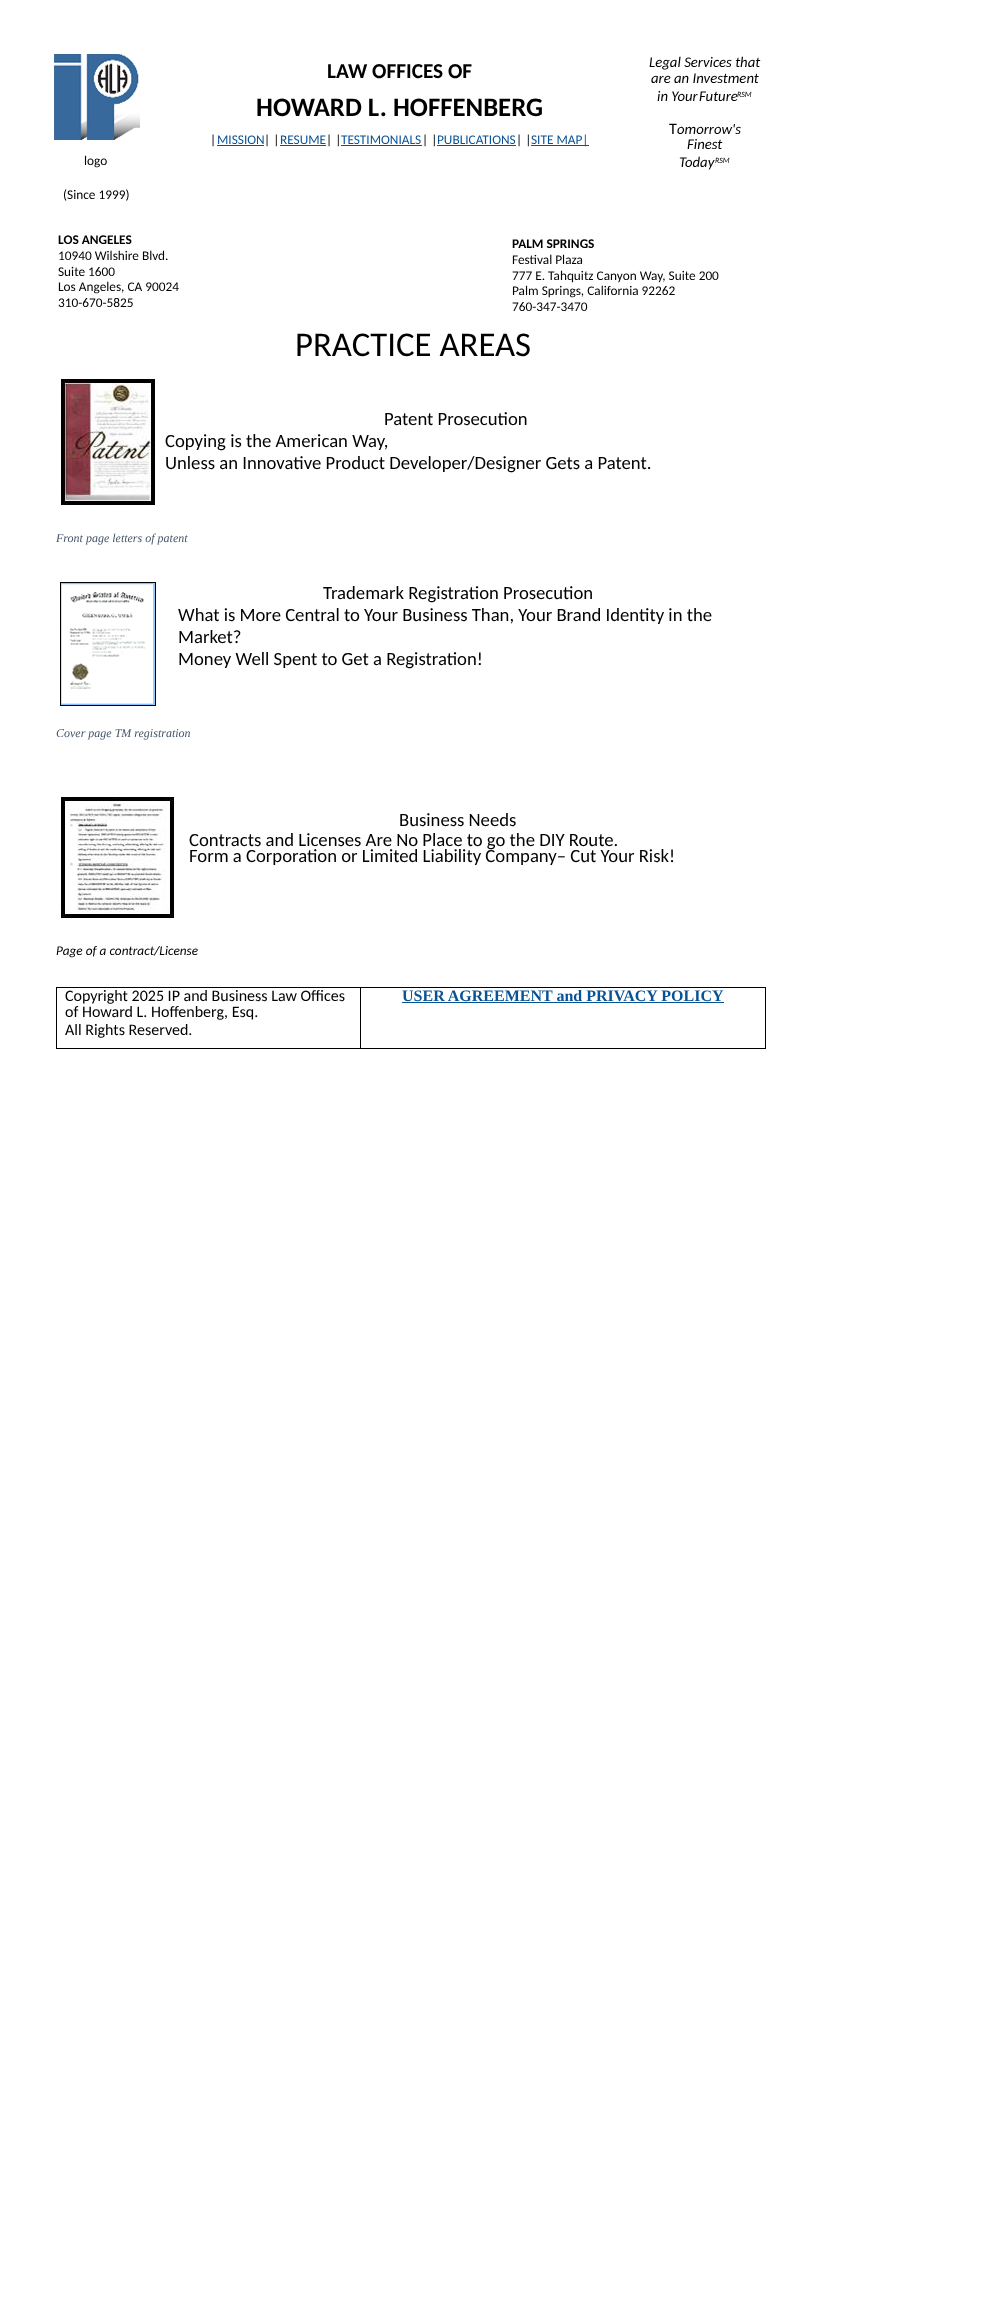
<svg xmlns="http://www.w3.org/2000/svg" width="985" height="2298">
<rect width="100%" height="100%" fill="#fff"/>
<image x="54" y="54" width="86" height="86" href="media/1.png"/>
<text x="327" y="78" style="font-family:Carlito;font-size:21.25px;font-weight:bold;fill:#000">LAW OFFICES OF</text>
<text x="256" y="116" style="font-family:Carlito;font-size:26.75px;font-weight:bold;fill:#000">HOWARD L. HOFFENBERG</text>
<text x="210" y="144" style="font-family:Carlito;font-size:13.3px;fill:#000">|</text>
<text x="217" y="144" style="font-family:Carlito;font-size:13.3px;fill:#085296">MISSION</text>
<rect x="217" y="145" width="47" height="1" fill="#085296"/>
<text x="264" y="144" style="font-family:Carlito;font-size:13.3px;fill:#000">| |</text>
<text x="280" y="144" style="font-family:Carlito;font-size:13.3px;fill:#085296">RESUME</text>
<rect x="280" y="145" width="46" height="1" fill="#085296"/>
<text x="326" y="144" style="font-family:Carlito;font-size:13.3px;fill:#000">| |</text>
<text x="341" y="144" style="font-family:Carlito;font-size:13.3px;fill:#085296">TESTIMONIALS</text>
<rect x="341" y="145" width="81" height="1" fill="#085296"/>
<text x="422" y="144" style="font-family:Carlito;font-size:13.3px;fill:#000">| |</text>
<text x="437" y="144" style="font-family:Carlito;font-size:13.3px;fill:#085296">PUBLICATIONS</text>
<rect x="437" y="145" width="79" height="1" fill="#085296"/>
<text x="516" y="144" style="font-family:Carlito;font-size:13.3px;fill:#000">| |</text>
<rect x="531" y="145" width="58" height="1" fill="#085296"/>
<text x="531" y="144" style="font-family:Carlito;font-size:13.3px;fill:#085296">SITE MAP|</text>
<text x="649" y="67" style="font-family:Carlito;font-size:14.75px;font-style:italic;fill:#000">Legal Services that</text>
<text x="651" y="83" style="font-family:Carlito;font-size:14.75px;font-style:italic;fill:#000">are an Investment</text>
<text x="657" y="101" style="font-family:Carlito;font-size:14.75px;font-style:italic;fill:#000">in Your</text>
<text x="699" y="101" style="font-family:Carlito;font-size:14.75px;font-style:italic;fill:#000">Future</text>
<text x="737" y="97" style="font-family:Carlito;font-size:8px;font-style:italic;fill:#000">RSM</text>
<text x="669" y="134" style="font-family:Carlito;font-size:16px;fill:#000">T</text>
<text x="677" y="134" style="font-family:Carlito;font-size:14.75px;font-style:italic;fill:#000">omorrow's</text>
<text x="687" y="149" style="font-family:Carlito;font-size:14.75px;font-style:italic;fill:#000">Finest</text>
<text x="679" y="167" style="font-family:Carlito;font-size:14.75px;font-style:italic;fill:#000">Today</text>
<text x="715" y="163" style="font-family:Carlito;font-size:8px;font-style:italic;fill:#000">RSM</text>
<text x="84" y="165" style="font-family:Carlito;font-size:13.3px;fill:#000">logo</text>
<text x="63" y="199" style="font-family:Carlito;font-size:13.3px;fill:#000">(Since 1999)</text>
<text x="58" y="244" style="font-family:Carlito;font-size:13.3px;font-weight:bold;fill:#000">LOS ANGELES</text>
<text x="58" y="260" style="font-family:Carlito;font-size:13.3px;fill:#000">10940 Wilshire Blvd.</text>
<text x="58" y="276" style="font-family:Carlito;font-size:13.3px;fill:#000">Suite 1600</text>
<text x="58" y="291" style="font-family:Carlito;font-size:13.3px;fill:#000">Los Angeles, CA 90024</text>
<text x="58" y="307" style="font-family:Carlito;font-size:13.3px;fill:#000">310-670-5825</text>
<text x="512" y="248" style="font-family:Carlito;font-size:13.3px;font-weight:bold;fill:#000">PALM SPRINGS</text>
<text x="512" y="264" style="font-family:Carlito;font-size:13.3px;fill:#000">Festival Plaza</text>
<text x="512" y="280" style="font-family:Carlito;font-size:13.3px;fill:#000">777 E. Tahquitz Canyon Way, Suite 200</text>
<text x="512" y="295" style="font-family:Carlito;font-size:13.3px;fill:#000">Palm Springs, California 92262</text>
<text x="512" y="311" style="font-family:Carlito;font-size:13.3px;fill:#000">760-347-3470</text>
<text x="295" y="356" style="font-family:Carlito;font-size:34.75px;fill:#000">PRACTICE AREAS</text>
<image x="61" y="379" width="94" height="126" href="media/2.png"/>
<text x="384" y="425" style="font-family:Carlito;font-size:18.7px;fill:#000">Patent Prosecution</text>
<text x="165" y="447" style="font-family:Carlito;font-size:18.7px;fill:#000">Copying is the American Way,</text>
<text x="165" y="469" style="font-family:Carlito;font-size:18.7px;fill:#000">Unless an Innovative Product Developer/Designer Gets a Patent.</text>
<text x="56" y="542" style="font-family:Liberation Serif;font-size:12px;font-style:italic;fill:#44546a">Front page letters of patent</text>
<text x="56" y="737" style="font-family:Liberation Serif;font-size:12px;font-style:italic;fill:#44546a">Cover page TM registration</text>
<text x="56" y="955" style="font-family:Carlito;font-size:13.3px;font-style:italic;fill:#000">Page of a contract/License</text>
<image x="60" y="582" width="96" height="124" href="media/3.png"/>
<text x="323" y="599" style="font-family:Carlito;font-size:18.7px;fill:#000">Trademark Registration Prosecution</text>
<text x="178" y="621" style="font-family:Carlito;font-size:18.7px;fill:#000">What is More Central to Your Business Than, Your Brand Identity in the</text>
<text x="178" y="643" style="font-family:Carlito;font-size:18.7px;fill:#000">Market?</text>
<text x="178" y="665" style="font-family:Carlito;font-size:18.7px;fill:#000">Money Well Spent to Get a Registration!</text>
<image x="61" y="797" width="113" height="121" href="media/4.png"/>
<text x="399" y="826" style="font-family:Carlito;font-size:18.7px;fill:#000">Business Needs</text>
<text x="189" y="846" style="font-family:Carlito;font-size:18.7px;fill:#000">Contracts and Licenses Are No Place to go the DIY Route.</text>
<text x="189" y="862" style="font-family:Carlito;font-size:18.7px;fill:#000">Form a Corporation or Limited Liability Company– Cut Your Risk!</text>
<rect x="360" y="987" width="406" height="1" fill="#000"/>
<rect x="765" y="987" width="1" height="62" fill="#000"/>
<rect x="360" y="1048" width="406" height="1" fill="#000"/>
<rect x="360" y="987" width="1" height="62" fill="#000"/>
<rect x="56" y="987" width="305" height="1" fill="#000"/>
<rect x="56" y="1048" width="305" height="1" fill="#000"/>
<rect x="56" y="987" width="1" height="62" fill="#000"/>
<text x="65" y="1001" style="font-family:Carlito;font-size:16px;fill:#000">Copyright 2025 IP and Business Law Offices</text>
<text x="65" y="1017" style="font-family:Carlito;font-size:16px;fill:#000">of Howard L. Hoffenberg, Esq.</text>
<text x="65" y="1035" style="font-family:Carlito;font-size:16px;fill:#000">All Rights Reserved.</text>
<text x="402" y="1001" style="font-family:Liberation Serif;font-size:16px;font-weight:bold;fill:#085296">USER AGREEMENT and PRIVACY POLICY</text>
<rect x="402" y="1002" width="322" height="1" fill="#085296"/>
</svg>
